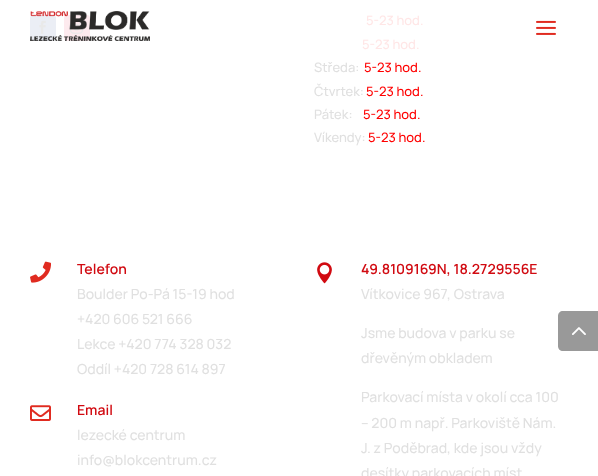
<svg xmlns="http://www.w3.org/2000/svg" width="598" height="476">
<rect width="100%" height="100%" fill="#fff"/>
<rect x="30" y="15" width="26" height="26" rx="3" fill="#ebeef5"/>
<image x="39" y="20" width="7" height="14" href="media/3.png"/>
<rect x="64" y="15" width="26" height="26" rx="3" fill="#fdeaee"/>
<image x="70" y="22" width="13" height="12" href="media/4.png"/>
<image x="30" y="11" width="120" height="30" href="media/1.png"/>
<image x="536" y="20" width="20" height="15" href="media/2.png"/>
<text x="366" y="25" style="font-family:Manrope;font-size:13px;font-weight:500;fill:#ffe6e6">5-23 hod.</text>
<text x="362" y="49" style="font-family:Manrope;font-size:13px;font-weight:500;fill:#ffe6e6">5-23 hod.</text>
<text x="314" y="72" style="font-family:Manrope;font-size:13px;font-weight:500;fill:#e0e0e0">Středa:</text>
<text x="364" y="72" style="font-family:Manrope;font-size:13px;font-weight:500;fill:#f00">5-23 hod.</text>
<text x="314" y="96" style="font-family:Manrope;font-size:13px;font-weight:500;fill:#e0e0e0">Čtvrtek:</text>
<text x="366" y="96" style="font-family:Manrope;font-size:13px;font-weight:500;fill:#f00">5-23 hod.</text>
<text x="314" y="119" style="font-family:Manrope;font-size:13px;font-weight:500;fill:#e0e0e0">Pátek:</text>
<text x="363" y="119" style="font-family:Manrope;font-size:13px;font-weight:500;fill:#f00">5-23 hod.</text>
<text x="314" y="142" style="font-family:Manrope;font-size:13px;font-weight:500;fill:#e0e0e0">Víkendy:</text>
<text x="368" y="142" style="font-family:Manrope;font-size:13px;font-weight:500;fill:#f00">5-23 hod.</text>
<image x="30" y="261" width="21" height="22" href="media/5.png"/>
<text x="77" y="274" style="font-family:Manrope;font-size:14px;font-weight:600;fill:#d10a11">Telefon</text>
<text x="77" y="299" style="font-family:Manrope;font-size:14px;font-weight:500;fill:#e0e0e0">Boulder Po-Pá 15-19 hod</text>
<text x="77" y="324" style="font-family:Manrope;font-size:14px;font-weight:500;fill:#e0e0e0">+420 606 521 666</text>
<text x="77" y="349" style="font-family:Manrope;font-size:14px;font-weight:500;fill:#e0e0e0">Lekce +420 774 328 032</text>
<text x="77" y="374" style="font-family:Manrope;font-size:14px;font-weight:500;fill:#e0e0e0">Oddíl +420 728 614 897</text>
<image x="30" y="405" width="21" height="16" href="media/6.png"/>
<text x="77" y="415" style="font-family:Manrope;font-size:14px;font-weight:600;fill:#d10a11">Email</text>
<text x="77" y="440" style="font-family:Manrope;font-size:14px;font-weight:500;fill:#e0e0e0">lezecké centrum</text>
<text x="77" y="465" style="font-family:Manrope;font-size:14px;font-weight:500;fill:#e0e0e0">info@blokcentrum.cz</text>
<image x="317" y="262" width="15" height="22" href="media/7.png"/>
<text x="361" y="274" style="font-family:Manrope;font-size:14px;font-weight:600;fill:#d10a11">49.8109169N, 18.2729556E</text>
<text x="361" y="299" style="font-family:Manrope;font-size:14px;font-weight:500;fill:#e0e0e0">Vítkovice 967, Ostrava</text>
<text x="361" y="338" style="font-family:Manrope;font-size:14px;font-weight:500;fill:#e0e0e0">Jsme budova v parku se</text>
<text x="361" y="363" style="font-family:Manrope;font-size:14px;font-weight:500;fill:#e0e0e0">dřevěným obkladem</text>
<text x="361" y="402" style="font-family:Manrope;font-size:14px;font-weight:500;fill:#e0e0e0">Parkovací místa v okolí cca 100</text>
<text x="361" y="428" style="font-family:Manrope;font-size:14px;font-weight:500;fill:#e0e0e0">– 200 m např. Parkoviště Nám.</text>
<text x="361" y="453" style="font-family:Manrope;font-size:14px;font-weight:500;fill:#e0e0e0">J. z Poděbrad, kde jsou vždy</text>
<text x="361" y="478" style="font-family:Manrope;font-size:14px;font-weight:500;fill:#e0e0e0">desítky parkovacích míst</text>
<path d="M563 311h35v40h-35c-3 0-5-2-5-5v-30c0-3 2-5 5-5z" fill="#999"/>
<image x="572" y="327" width="14" height="8" href="media/8.png"/>
</svg>
